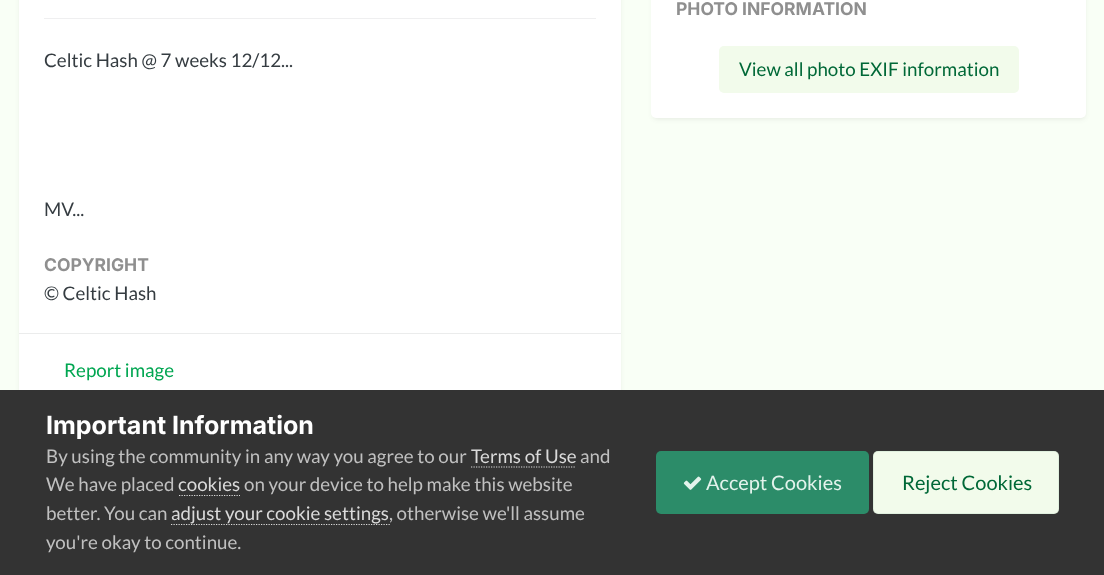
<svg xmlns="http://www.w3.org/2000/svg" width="1104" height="575">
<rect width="100%" height="100%" fill="#f9fff6"/>
<rect x="653" y="-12" width="432" height="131" rx="4" fill="#3333331a" filter="blur(2.5px)"/>
<rect x="651" y="-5" width="435" height="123" rx="5" fill="#fff"/>
<text x="676" y="15" style="font-family:Inter;font-size:17.5px;font-weight:bold;fill:#8f8f8f">PHOTO INFORMATION</text>
<rect x="719" y="46" width="300" height="47" rx="5" fill="#f2fbeb"/>
<text x="739" y="76" style="font-family:Lato;font-size:18.75px;fill:#006837">View all photo EXIF information</text>
<rect x="20" y="-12" width="600" height="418" rx="4" fill="#3333331a" filter="blur(2.5px)"/>
<rect x="19" width="602" height="390" fill="#fff"/>
<rect x="44" y="18" width="552" height="1" fill="#efeff0"/>
<text x="44" y="67" style="font-family:Lato;font-size:18.75px;fill:#353c41">Celtic Hash @ 7 weeks 12/12...</text>
<text x="44" y="216" style="font-family:Lato;font-size:18.75px;fill:#353c41">MV...</text>
<text x="44" y="271" style="font-family:Inter;font-size:17.5px;font-weight:bold;fill:#8f8f8f">COPYRIGHT</text>
<text x="44" y="300" style="font-family:Lato;font-size:18.75px;fill:#353c41">© Celtic Hash</text>
<rect x="19" y="333" width="602" height="1" fill="#ebecec"/>
<text x="64" y="377" style="font-family:Lato;font-size:18.75px;fill:#00a651">Report image</text>
<rect y="390" width="1104" height="185" fill="#333"/>
<text x="46" y="434" style="font-family:Inter;font-size:25px;font-weight:bold;fill:#fff">Important Information</text>
<text x="46" y="463" style="font-family:Lato;font-size:18.75px;fill:#c0c0c0">By using the community in any way you agree to our</text>
<text x="471" y="463" style="font-family:Lato;font-size:18.75px;fill:#dadada">Terms of Use</text>
<path d="M471 467h105" fill="none" stroke="#dadada" stroke-width="1.2" stroke-dasharray="1.25 1.25"/>
<text x="580" y="463" style="font-family:Lato;font-size:18.75px;fill:#c0c0c0">and</text>
<text x="46" y="491" style="font-family:Lato;font-size:18.75px;fill:#c0c0c0">We have placed</text>
<text x="178" y="491" style="font-family:Lato;font-size:18.75px;fill:#dadada">cookies</text>
<path d="M179 495.5h61" fill="none" stroke="#dadada" stroke-width="1.2" stroke-dasharray="1.25 1.25"/>
<text x="244" y="491" style="font-family:Lato;font-size:18.75px;fill:#c0c0c0">on your device to help make this website</text>
<text x="46" y="520" style="font-family:Lato;font-size:18.75px;fill:#c0c0c0">better. You can</text>
<path d="M171 524.5h219" fill="none" stroke="#dadada" stroke-width="1.2" stroke-dasharray="1.25 1.25"/>
<text x="171" y="520" style="font-family:Lato;font-size:18.75px;fill:#dadada">adjust your cookie settings</text>
<text x="389" y="520" style="font-family:Lato;font-size:18.75px;fill:#c0c0c0">, otherwise we'll assume</text>
<text x="46" y="549" style="font-family:Lato;font-size:18.75px;fill:#c0c0c0">you're okay to continue.</text>
<rect x="656" y="451" width="213" height="63" rx="5" fill="#2c8c69"/>
<image x="683" y="476" width="19" height="14" href="media/1.png"/>
<text x="706" y="490" style="font-family:Lato;font-size:20px;fill:#e3f3ec">Accept Cookies</text>
<rect x="873" y="451" width="186" height="63" rx="5" fill="#f2fbeb"/>
<rect x="873.5" y="451.5" width="185" height="62" rx="4.5" fill="none" stroke="#00683712"/>
<text x="902" y="490" style="font-family:Lato;font-size:20px;fill:#006837">Reject Cookies</text>
</svg>
